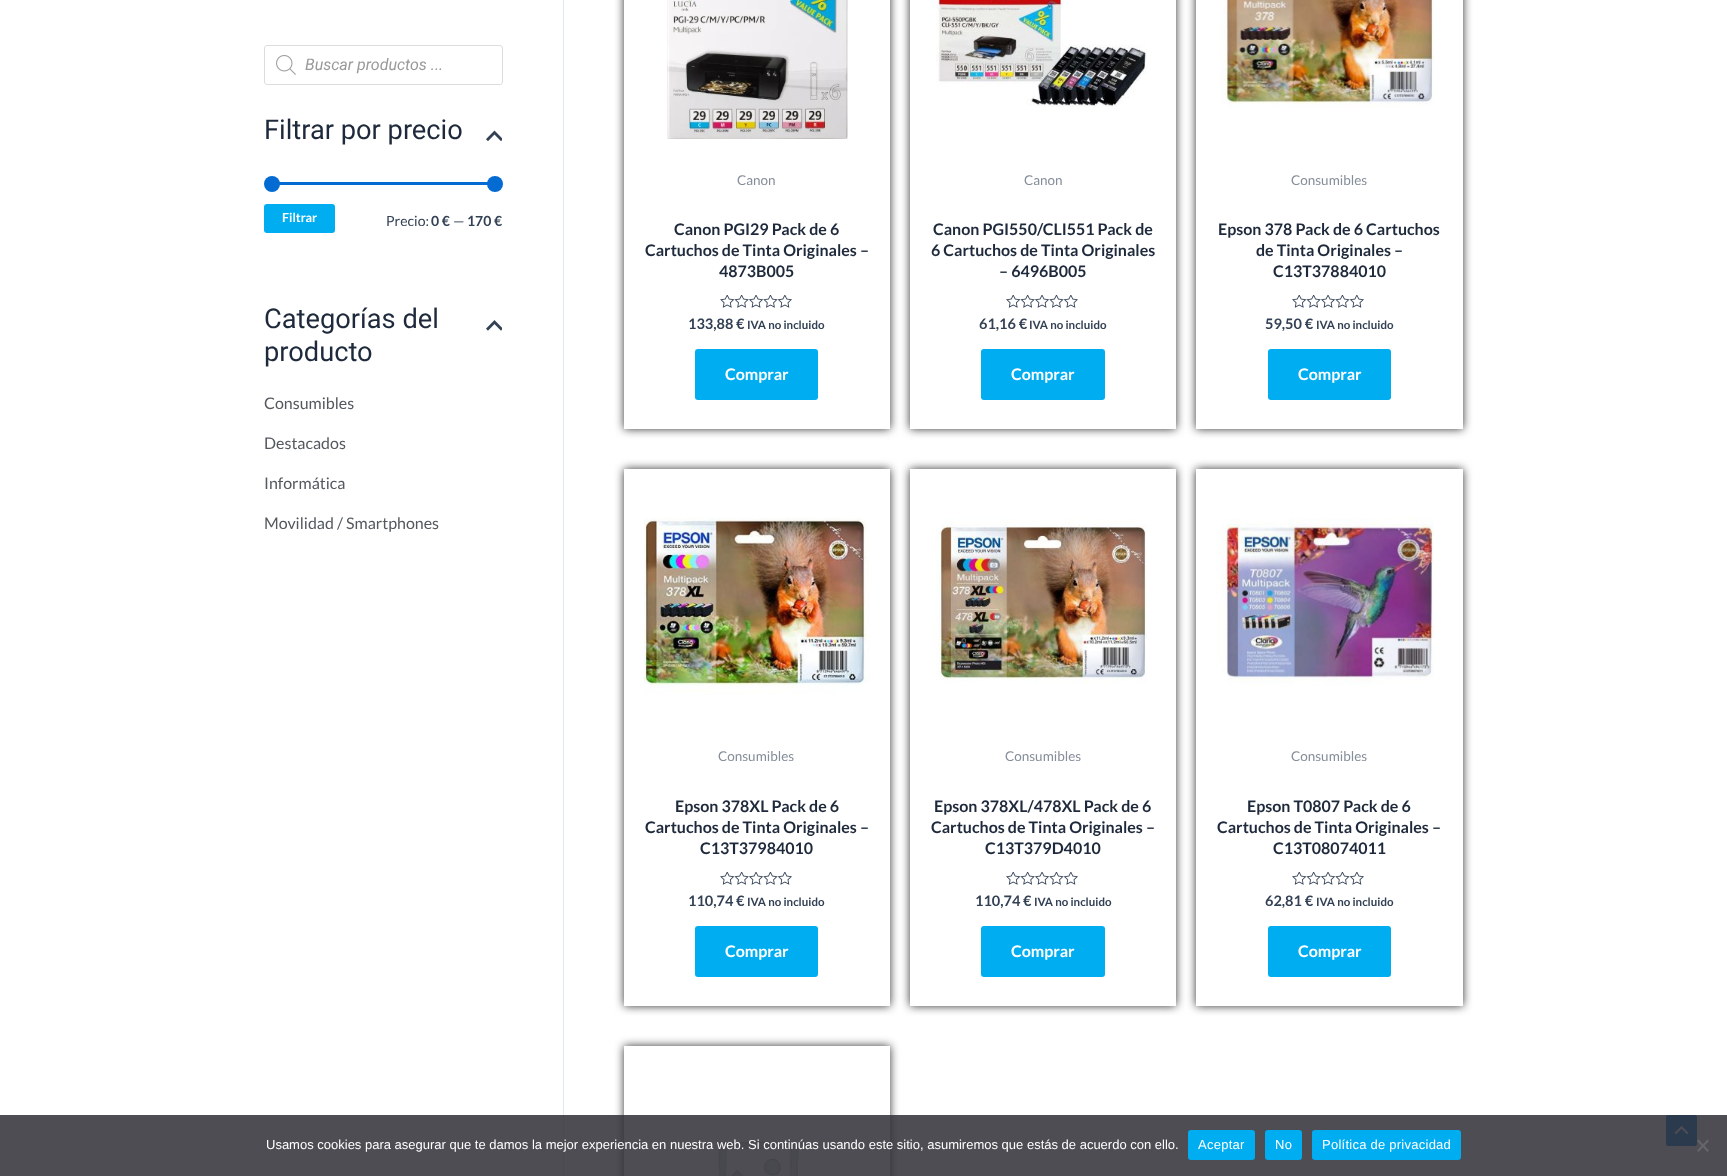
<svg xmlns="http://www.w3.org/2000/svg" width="1727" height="1176">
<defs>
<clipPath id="clip1"><path d="M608 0h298v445h-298zm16-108h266v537h-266z" clip-rule="evenodd"/></clipPath>
<clipPath id="clip2"><path d="M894 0h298v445h-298zm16-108h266v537h-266z" clip-rule="evenodd"/></clipPath>
<clipPath id="clip3"><path d="M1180 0h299v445h-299zm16-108h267v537h-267z" clip-rule="evenodd"/></clipPath>
<clipPath id="clip4"><path d="M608 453h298v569h-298zm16 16h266v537h-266z" clip-rule="evenodd"/></clipPath>
<clipPath id="clip5"><path d="M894 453h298v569h-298zm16 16h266v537h-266z" clip-rule="evenodd"/></clipPath>
<clipPath id="clip6"><path d="M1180 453h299v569h-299zm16 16h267v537h-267z" clip-rule="evenodd"/></clipPath>
<clipPath id="clip7"><path d="M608 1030h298v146h-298zm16 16h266v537h-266z" clip-rule="evenodd"/></clipPath>
</defs>
<rect width="100%" height="100%" fill="#fff"/>
<rect x="264.5" y="45.5" width="238" height="39" rx="2.5" fill="none" stroke="#ddd"/>
<image x="276" y="55" width="20" height="20" href="media/1.png"/>
<text x="305" y="70" style="font-family:Roboto;font-size:16px;font-style:italic;fill:#999">Buscar productos ...</text>
<text x="264" y="139" style="font-family:Roboto;font-size:27.25px;fill:#1e293b">Filtrar por precio</text>
<image x="486" y="130" width="16" height="12" href="media/2.png"/>
<rect x="272" y="182" width="223" height="3" fill="#046bd2"/>
<circle cx="272" cy="184" r="8" fill="#046bd2"/>
<circle cx="495" cy="184" r="8" fill="#046bd2"/>
<rect x="264" y="204" width="71" height="29" rx="3" fill="#00adf1"/>
<text x="282" y="222" style="font-family:Lato;font-size:12.5px;font-weight:bold;fill:#fff">Filtrar</text>
<text x="386" y="226" style="font-family:Lato;font-size:14px;fill:#334155">Precio:</text>
<text x="431" y="226" style="font-family:Lato;font-size:14px;font-weight:bold;fill:#334155">0 €</text>
<text x="453" y="226" style="font-family:Lato;font-size:14px;fill:#334155">—</text>
<text x="467" y="226" style="font-family:Lato;font-size:14px;font-weight:bold;fill:#334155">170 €</text>
<text x="264" y="328" style="font-family:Roboto;font-size:27.25px;fill:#1e293b">Categorías del</text>
<image x="486" y="320" width="16" height="11" href="media/3.png"/>
<text x="264" y="361" style="font-family:Roboto;font-size:27.25px;fill:#1e293b">producto</text>
<text x="264" y="409" style="font-family:Lato;font-size:16px;fill:#54595f">Consumibles</text>
<text x="264" y="449" style="font-family:Lato;font-size:16px;fill:#54595f">Destacados</text>
<text x="264" y="489" style="font-family:Lato;font-size:16px;fill:#54595f">Informática</text>
<text x="264" y="529" style="font-family:Lato;font-size:16px;fill:#54595f">Movilidad / Smartphones</text>
<rect x="563" width="1" height="1176" fill="#e2e8f0"/>
<g clip-path="url(#clip1)">
<rect x="624" y="-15" width="266" height="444" fill="#333" filter="blur(5px)"/>
</g>
<image x="667" y="0" width="181" height="139" href="media/4.png"/>
<text x="737" y="185" style="font-family:Lato;font-size:13.5px;fill:#858d99">Canon</text>
<text x="674" y="235" style="font-family:Lato;font-size:16px;font-weight:bold;fill:#1e293b">Canon PGI29 Pack de 6</text>
<text x="645" y="256" style="font-family:Lato;font-size:16px;font-weight:bold;fill:#1e293b">Cartuchos de Tinta Originales –</text>
<text x="719" y="277" style="font-family:Lato;font-size:16px;font-weight:bold;fill:#1e293b">4873B005</text>
<image x="720" y="295" width="72" height="13" href="media/5.png"/>
<text x="688" y="329" style="font-family:Lato;font-size:14.5px;font-weight:bold;fill:#334155">133,88 €</text>
<text x="747" y="329" style="font-family:Lato;font-size:11.5px;font-weight:bold;fill:#334155">IVA no incluido</text>
<rect x="695" y="349" width="123" height="51" rx="3" fill="#00adf1"/>
<text x="725" y="380" style="font-family:Lato;font-size:16px;font-weight:bold;fill:#fff">Comprar</text>
<g clip-path="url(#clip2)">
<rect x="910" y="-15" width="266" height="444" fill="#333" filter="blur(5px)"/>
</g>
<image x="930" y="0" width="217" height="107" href="media/6.png"/>
<text x="1024" y="185" style="font-family:Lato;font-size:13.5px;fill:#858d99">Canon</text>
<text x="933" y="235" style="font-family:Lato;font-size:16px;font-weight:bold;fill:#1e293b">Canon PGI550/CLI551 Pack de</text>
<text x="931" y="256" style="font-family:Lato;font-size:16px;font-weight:bold;fill:#1e293b">6 Cartuchos de Tinta Originales</text>
<text x="999" y="277" style="font-family:Lato;font-size:16px;font-weight:bold;fill:#1e293b">– 6496B005</text>
<image x="1006" y="295" width="72" height="13" href="media/5.png"/>
<text x="979" y="329" style="font-family:Lato;font-size:14.5px;font-weight:bold;fill:#334155">61,16 €</text>
<text x="1029" y="329" style="font-family:Lato;font-size:11.5px;font-weight:bold;fill:#334155">IVA no incluido</text>
<rect x="981" y="349" width="124" height="51" rx="3" fill="#00adf1"/>
<text x="1011" y="380" style="font-family:Lato;font-size:16px;font-weight:bold;fill:#fff">Comprar</text>
<g clip-path="url(#clip3)">
<rect x="1196" y="-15" width="267" height="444" fill="#333" filter="blur(5px)"/>
</g>
<image x="1219" y="0" width="215" height="108" href="media/7.png"/>
<text x="1291" y="185" style="font-family:Lato;font-size:13.5px;fill:#858d99">Consumibles</text>
<text x="1218" y="235" style="font-family:Lato;font-size:16px;font-weight:bold;fill:#1e293b">Epson 378 Pack de 6 Cartuchos</text>
<text x="1256" y="256" style="font-family:Lato;font-size:16px;font-weight:bold;fill:#1e293b">de Tinta Originales –</text>
<text x="1273" y="277" style="font-family:Lato;font-size:16px;font-weight:bold;fill:#1e293b">C13T37884010</text>
<image x="1292" y="295" width="72" height="13" href="media/5.png"/>
<text x="1265" y="329" style="font-family:Lato;font-size:14.5px;font-weight:bold;fill:#334155">59,50 €</text>
<text x="1316" y="329" style="font-family:Lato;font-size:11.5px;font-weight:bold;fill:#334155">IVA no incluido</text>
<rect x="1268" y="349" width="123" height="51" rx="3" fill="#00adf1"/>
<text x="1298" y="380" style="font-family:Lato;font-size:16px;font-weight:bold;fill:#fff">Comprar</text>
<g clip-path="url(#clip4)">
<rect x="624" y="469" width="266" height="537" fill="#333" filter="blur(5px)"/>
</g>
<image x="644" y="517" width="226" height="178" href="media/8.png"/>
<text x="718" y="761" style="font-family:Lato;font-size:13.5px;fill:#858d99">Consumibles</text>
<text x="675" y="812" style="font-family:Lato;font-size:16px;font-weight:bold;fill:#1e293b">Epson 378XL Pack de 6</text>
<text x="645" y="833" style="font-family:Lato;font-size:16px;font-weight:bold;fill:#1e293b">Cartuchos de Tinta Originales –</text>
<text x="700" y="854" style="font-family:Lato;font-size:16px;font-weight:bold;fill:#1e293b">C13T37984010</text>
<image x="720" y="872" width="72" height="13" href="media/5.png"/>
<text x="688" y="906" style="font-family:Lato;font-size:14.5px;font-weight:bold;fill:#334155">110,74 €</text>
<text x="747" y="906" style="font-family:Lato;font-size:11.5px;font-weight:bold;fill:#334155">IVA no incluido</text>
<rect x="695" y="926" width="123" height="51" rx="3" fill="#00adf1"/>
<text x="725" y="957" style="font-family:Lato;font-size:16px;font-weight:bold;fill:#fff">Comprar</text>
<g clip-path="url(#clip5)">
<rect x="910" y="469" width="266" height="537" fill="#333" filter="blur(5px)"/>
</g>
<image x="933" y="518" width="214" height="166" href="media/9.png"/>
<text x="1005" y="761" style="font-family:Lato;font-size:13.5px;fill:#858d99">Consumibles</text>
<text x="934" y="812" style="font-family:Lato;font-size:16px;font-weight:bold;fill:#1e293b">Epson 378XL/478XL Pack de 6</text>
<text x="931" y="833" style="font-family:Lato;font-size:16px;font-weight:bold;fill:#1e293b">Cartuchos de Tinta Originales –</text>
<text x="985" y="854" style="font-family:Lato;font-size:16px;font-weight:bold;fill:#1e293b">C13T379D4010</text>
<image x="1006" y="872" width="72" height="13" href="media/5.png"/>
<text x="975" y="906" style="font-family:Lato;font-size:14.5px;font-weight:bold;fill:#334155">110,74 €</text>
<text x="1034" y="906" style="font-family:Lato;font-size:11.5px;font-weight:bold;fill:#334155">IVA no incluido</text>
<rect x="981" y="926" width="124" height="51" rx="3" fill="#00adf1"/>
<text x="1011" y="957" style="font-family:Lato;font-size:16px;font-weight:bold;fill:#fff">Comprar</text>
<g clip-path="url(#clip6)">
<rect x="1196" y="469" width="267" height="537" fill="#333" filter="blur(5px)"/>
</g>
<image x="1216" y="518" width="218" height="168" href="media/10.png"/>
<text x="1291" y="761" style="font-family:Lato;font-size:13.5px;fill:#858d99">Consumibles</text>
<text x="1247" y="812" style="font-family:Lato;font-size:16px;font-weight:bold;fill:#1e293b">Epson T0807 Pack de 6</text>
<text x="1217" y="833" style="font-family:Lato;font-size:16px;font-weight:bold;fill:#1e293b">Cartuchos de Tinta Originales –</text>
<text x="1273" y="854" style="font-family:Lato;font-size:16px;font-weight:bold;fill:#1e293b">C13T08074011</text>
<image x="1292" y="872" width="72" height="13" href="media/5.png"/>
<text x="1265" y="906" style="font-family:Lato;font-size:14.5px;font-weight:bold;fill:#334155">62,81 €</text>
<text x="1316" y="906" style="font-family:Lato;font-size:11.5px;font-weight:bold;fill:#334155">IVA no incluido</text>
<rect x="1268" y="926" width="123" height="51" rx="3" fill="#00adf1"/>
<text x="1298" y="957" style="font-family:Lato;font-size:16px;font-weight:bold;fill:#fff">Comprar</text>
<g clip-path="url(#clip7)">
<rect x="624" y="1046" width="266" height="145" fill="#333" filter="blur(5px)"/>
</g>
<image x="718" y="1141" width="81" height="35" href="media/11.png"/>
<rect x="1666" y="1115" width="31" height="31" rx="2" fill="#046bd2"/>
<image x="1674" y="1126" width="15" height="8" href="media/12.png"/>
<rect y="1115" width="1727" height="61" fill="#32323ade"/>
<text x="266" y="1149" style="font-family:Liberation Sans;font-size:13px;fill:#fff">Usamos cookies para asegurar que te damos la mejor experiencia en nuestra web. Si continúas usando este sitio, asumiremos que estás de acuerdo con ello.</text>
<rect x="1188" y="1130" width="67" height="30" rx="3" fill="#00adf1"/>
<text x="1198" y="1149" style="font-family:Liberation Sans;font-size:13px;letter-spacing:0.25px;fill:#fff">Aceptar</text>
<rect x="1265" y="1130" width="37" height="30" rx="3" fill="#00adf1"/>
<text x="1275" y="1149" style="font-family:Liberation Sans;font-size:13px;letter-spacing:0.25px;fill:#fff">No</text>
<rect x="1312" y="1130" width="149" height="30" rx="3" fill="#00adf1"/>
<text x="1322" y="1149" style="font-family:Liberation Sans;font-size:13px;letter-spacing:0.25px;fill:#fff">Política de privacidad</text>
<path d="M1707.5 1139.5l1.5 1.5l-10.5 11l-1.5-1.5z" fill="#66666a"/>
<path d="M1697 1141l1.5-1.5l10.5 11l-1.5 1.5z" fill="#66666a"/>
</svg>
